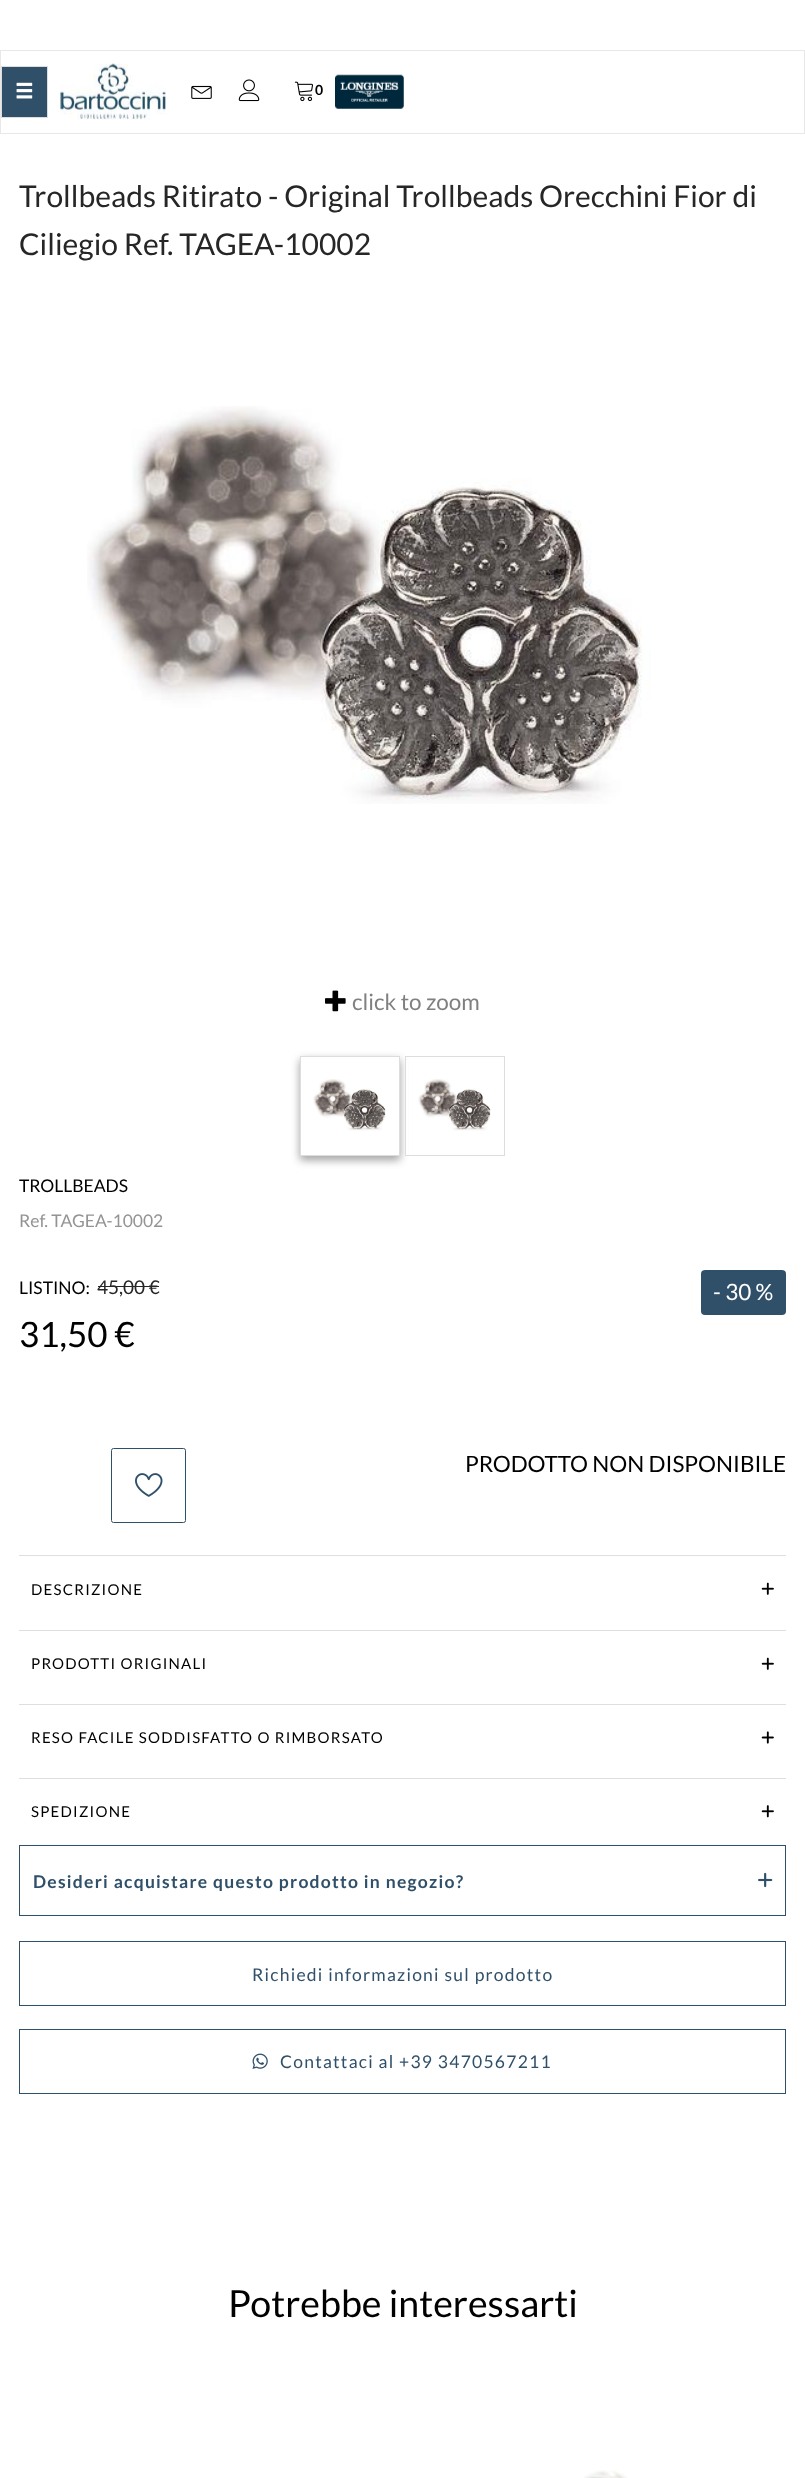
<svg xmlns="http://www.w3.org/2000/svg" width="805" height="2478">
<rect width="100%" height="100%" fill="#fff"/>
<rect x="0.5" y="50.5" width="804" height="83" fill="none" stroke="#e8e8e8"/>
<rect x="1.5" y="66.5" width="46" height="51" fill="#30506a" stroke="#ddd"/>
<image x="16" y="82" width="17" height="17" href="media/1.png"/>
<image x="60" y="63" width="106" height="57" href="media/2.png"/>
<image x="191" y="85" width="21" height="14" href="media/3.png"/>
<image x="238" y="79" width="22" height="23" href="media/4.png"/>
<image x="294" y="81" width="19" height="21" href="media/5.png"/>
<text x="315" y="95" style="font-family:Lato;font-size:14px;font-weight:bold;letter-spacing:1px;fill:#000">0</text>
<image x="335" y="74" width="69" height="35" href="media/6.png"/>
<text x="19" y="207" style="font-family:Lato;font-size:30px;fill:#262626">Trollbeads Ritirato - Original Trollbeads Orecchini Fior di</text>
<text x="19" y="255" style="font-family:Lato;font-size:30px;fill:#262626">Ciliegio Ref. TAGEA-10002</text>
<image x="87" y="406" width="564" height="398" href="media/7.png"/>
<image x="325" y="990" width="21" height="22" href="media/8.png"/>
<text x="352" y="1010" style="font-family:Lato;font-size:22.5px;fill:#808080">click to zoom</text>
<rect x="300" y="1060" width="100" height="100" fill="#0000003b" filter="blur(4px)"/>
<rect x="300" y="1060" width="100" height="100" fill="#00000029" filter="blur(4px)"/>
<rect x="300.5" y="1056.5" width="99" height="99" fill="#fff" stroke="#ddd"/>
<image x="313" y="1079" width="73" height="52" href="media/9.png"/>
<rect x="406" y="1060" width="2" height="95" fill="#fff"/>
<rect x="405.5" y="1056.5" width="99" height="99" fill="none" stroke="#ddd"/>
<image x="418" y="1079" width="73" height="52" href="media/9.png"/>
<text x="19" y="1192" style="font-family:Lato;font-size:17.5px;fill:#000">TROLLBEADS</text>
<text x="19" y="1227" style="font-family:Lato;font-size:17.5px;fill:#929496">Ref. TAGEA-10002</text>
<text x="19" y="1294" style="font-family:Lato;font-size:17.5px;fill:#000">LISTINO:</text>
<text x="97" y="1294" style="font-family:Lato;font-size:19px;fill:#262626">45,00 €</text>
<rect x="98" y="1286" width="61" height="1" fill="#262626"/>
<rect x="701" y="1270" width="85" height="45" rx="4" fill="#30506a"/>
<text x="713" y="1300" style="font-family:Lato;font-size:22.5px;fill:#fff">- 30 %</text>
<text x="19" y="1347" style="font-family:Lato;font-size:35px;fill:#000">31,50 €</text>
<image x="135" y="1473" width="28" height="24" href="media/10.png"/>
<rect x="111.5" y="1448.5" width="74" height="74" rx="2" fill="none" stroke="#30506a"/>
<text x="465" y="1472" style="font-family:Lato;font-size:22.5px;fill:#000">PRODOTTO NON DISPONIBILE</text>
<rect x="19" y="1555" width="767" height="1" fill="#dfdfdf"/>
<text x="31" y="1595" style="font-family:Lato;font-size:15px;letter-spacing:1.25px;fill:#000">DESCRIZIONE</text>
<image x="761" y="1582" width="13" height="13" href="media/11.png"/>
<rect x="19" y="1630" width="767" height="1" fill="#dfdfdf"/>
<text x="31" y="1669" style="font-family:Lato;font-size:15px;letter-spacing:1.25px;fill:#000">PRODOTTI ORIGINALI</text>
<image x="761" y="1657" width="13" height="13" href="media/11.png"/>
<rect x="19" y="1704" width="767" height="1" fill="#dfdfdf"/>
<text x="31" y="1743" style="font-family:Lato;font-size:15px;letter-spacing:1.25px;fill:#000">RESO FACILE SODDISFATTO O RIMBORSATO</text>
<image x="761" y="1731" width="13" height="13" href="media/12.png"/>
<rect x="19" y="1778" width="767" height="1" fill="#dfdfdf"/>
<text x="31" y="1817" style="font-family:Lato;font-size:15px;letter-spacing:1.25px;fill:#000">SPEDIZIONE</text>
<image x="761" y="1805" width="13" height="13" href="media/13.png"/>
<rect x="19.5" y="1845.5" width="766" height="70" fill="none" stroke="#30506a"/>
<text x="33" y="1888" style="font-family:Lato;font-size:17.5px;font-weight:bold;letter-spacing:1.25px;fill:#30506a">Desideri acquistare questo prodotto in negozio?</text>
<image x="758" y="1872" width="15" height="16" href="media/14.png"/>
<rect x="19.5" y="1941.5" width="766" height="64" fill="none" stroke="#30506a"/>
<text x="252" y="1981" style="font-family:Lato;font-size:17.5px;letter-spacing:1.25px;fill:#30506a">Richiedi informazioni sul prodotto</text>
<rect x="19.5" y="2029.5" width="766" height="64" fill="none" stroke="#30506a"/>
<image x="252" y="2053" width="16" height="16" href="media/15.png"/>
<text x="280" y="2068" style="font-family:Lato;font-size:17.5px;letter-spacing:1.25px;fill:#30506a">Contattaci al +39 3470567211</text>
<text x="228" y="2317" style="font-family:Lato;font-size:37.5px;fill:#000">Potrebbe interessarti</text>
<image x="584" y="2470" width="43" height="8" href="media/16.png"/>
</svg>
